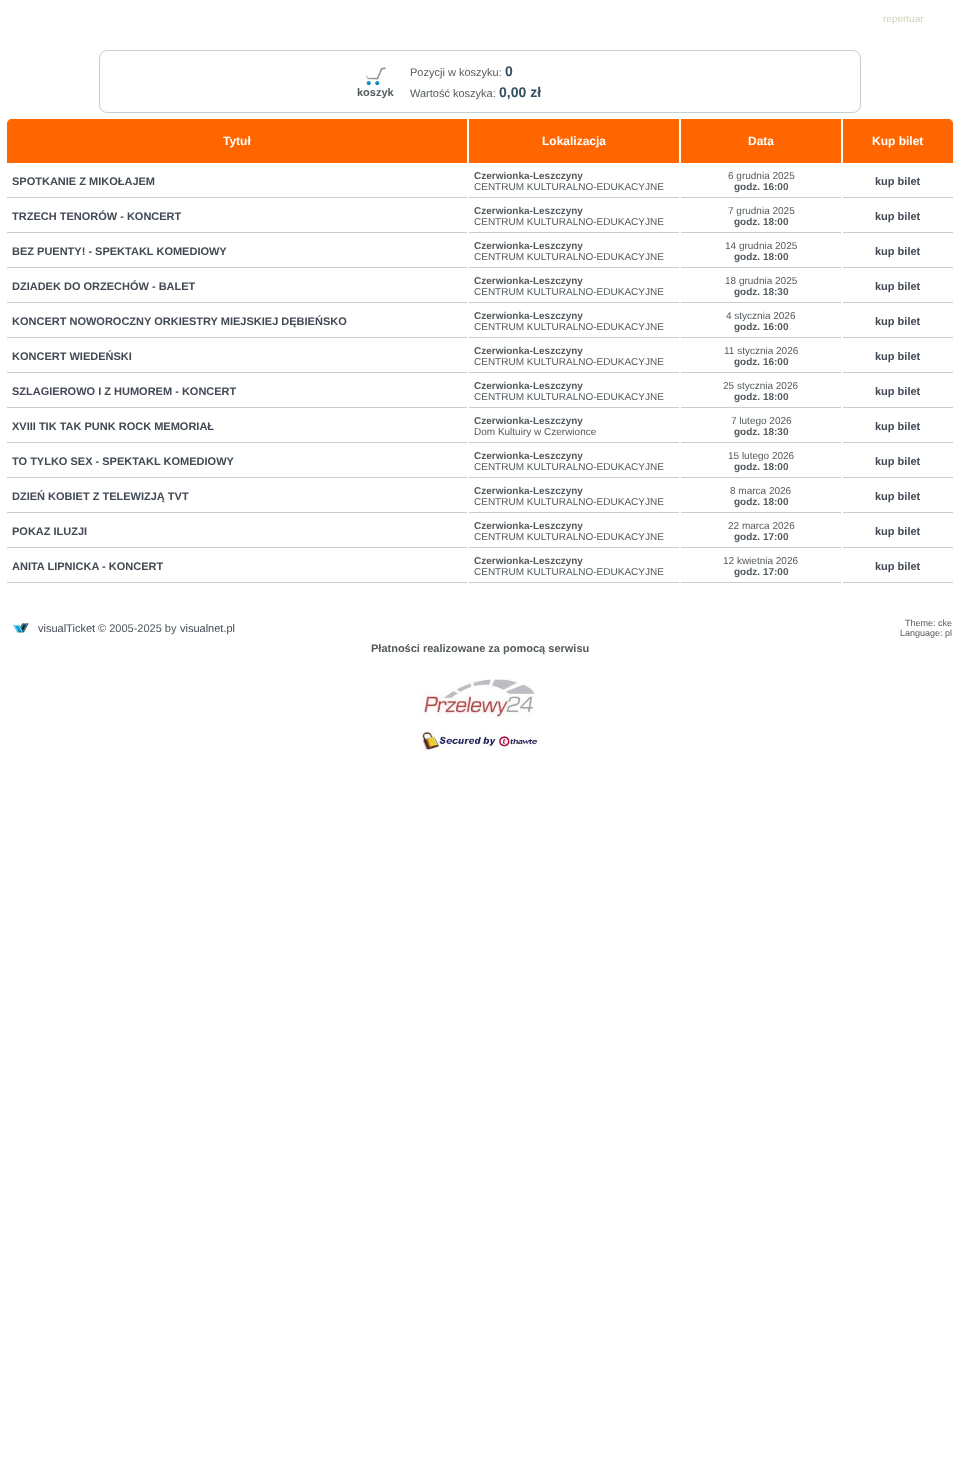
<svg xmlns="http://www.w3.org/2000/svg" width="959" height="1460">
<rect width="100%" height="100%" fill="#fff"/>
<text x="883" y="22" style="font-family:Liberation Sans;font-size:10px;fill:#d0d1bc">repertuar</text>
<rect x="99.5" y="50.5" width="761" height="62" rx="7.5" fill="none" stroke="#c5d0d6"/>
<image x="366" y="67" width="20" height="19" href="media/1.png"/>
<text x="357" y="96" style="font-family:Liberation Sans;font-size:11px;font-weight:bold;fill:#535a5e">koszyk</text>
<text x="410" y="76" style="font-family:Liberation Sans;font-size:11px;fill:#535a5e">Pozycji w koszyku:</text>
<text x="505" y="76" style="font-family:Liberation Sans;font-size:14px;font-weight:bold;fill:#304f5f">0</text>
<text x="410" y="97" style="font-family:Liberation Sans;font-size:11px;fill:#535a5e">Wartość koszyka:</text>
<text x="499" y="97" style="font-family:Liberation Sans;font-size:14px;font-weight:bold;fill:#304f5f">0,00 zł</text>
<path d="M12 119h455v44h-460v-39c0-3 2-5 5-5z" fill="#f60"/>
<text x="223" y="145" style="font-family:Liberation Sans;font-size:12px;font-weight:bold;fill:#fff">Tytuł</text>
<rect x="469" y="119" width="210" height="44" fill="#f60"/>
<text x="542" y="145" style="font-family:Liberation Sans;font-size:12px;font-weight:bold;fill:#fff">Lokalizacja</text>
<rect x="681" y="119" width="160" height="44" fill="#f60"/>
<text x="748" y="145" style="font-family:Liberation Sans;font-size:12px;font-weight:bold;fill:#fff">Data</text>
<path d="M843 119h105c3 0 5 2 5 5v39h-110z" fill="#f60"/>
<text x="872" y="145" style="font-family:Liberation Sans;font-size:12px;font-weight:bold;fill:#fff">Kup bilet</text>
<rect x="7" y="197" width="460" height="1" fill="#ccc"/>
<text x="12" y="185" style="font-family:Liberation Sans;font-size:11px;font-weight:bold;fill:#414953">SPOTKANIE Z MIKOŁAJEM</text>
<rect x="469" y="197" width="210" height="1" fill="#ccc"/>
<text x="474" y="179" style="font-family:Liberation Sans;font-size:10px;font-weight:bold;fill:#535a5e">Czerwionka-Leszczyny</text>
<text x="474" y="190" style="font-family:Liberation Sans;font-size:10px;fill:#535a5e">CENTRUM KULTURALNO-EDUKACYJNE</text>
<rect x="681" y="197" width="160" height="1" fill="#ccc"/>
<text x="728" y="179" style="font-family:Liberation Sans;font-size:10px;fill:#535a5e">6 grudnia 2025</text>
<text x="734" y="190" style="font-family:Liberation Sans;font-size:10px;font-weight:bold;fill:#535a5e">godz. 16:00</text>
<rect x="843" y="197" width="110" height="1" fill="#ccc"/>
<text x="875" y="185" style="font-family:Liberation Sans;font-size:11px;font-weight:bold;fill:#414953">kup bilet</text>
<rect x="7" y="232" width="460" height="1" fill="#ccc"/>
<text x="12" y="220" style="font-family:Liberation Sans;font-size:11px;font-weight:bold;fill:#414953">TRZECH TENORÓW - KONCERT</text>
<rect x="469" y="232" width="210" height="1" fill="#ccc"/>
<text x="474" y="214" style="font-family:Liberation Sans;font-size:10px;font-weight:bold;fill:#535a5e">Czerwionka-Leszczyny</text>
<text x="474" y="225" style="font-family:Liberation Sans;font-size:10px;fill:#535a5e">CENTRUM KULTURALNO-EDUKACYJNE</text>
<rect x="681" y="232" width="160" height="1" fill="#ccc"/>
<text x="728" y="214" style="font-family:Liberation Sans;font-size:10px;fill:#535a5e">7 grudnia 2025</text>
<text x="734" y="225" style="font-family:Liberation Sans;font-size:10px;font-weight:bold;fill:#535a5e">godz. 18:00</text>
<rect x="843" y="232" width="110" height="1" fill="#ccc"/>
<text x="875" y="220" style="font-family:Liberation Sans;font-size:11px;font-weight:bold;fill:#414953">kup bilet</text>
<rect x="7" y="267" width="460" height="1" fill="#ccc"/>
<text x="12" y="255" style="font-family:Liberation Sans;font-size:11px;font-weight:bold;fill:#414953">BEZ PUENTY! - SPEKTAKL KOMEDIOWY</text>
<rect x="469" y="267" width="210" height="1" fill="#ccc"/>
<text x="474" y="249" style="font-family:Liberation Sans;font-size:10px;font-weight:bold;fill:#535a5e">Czerwionka-Leszczyny</text>
<text x="474" y="260" style="font-family:Liberation Sans;font-size:10px;fill:#535a5e">CENTRUM KULTURALNO-EDUKACYJNE</text>
<rect x="681" y="267" width="160" height="1" fill="#ccc"/>
<text x="725" y="249" style="font-family:Liberation Sans;font-size:10px;fill:#535a5e">14 grudnia 2025</text>
<text x="734" y="260" style="font-family:Liberation Sans;font-size:10px;font-weight:bold;fill:#535a5e">godz. 18:00</text>
<rect x="843" y="267" width="110" height="1" fill="#ccc"/>
<text x="875" y="255" style="font-family:Liberation Sans;font-size:11px;font-weight:bold;fill:#414953">kup bilet</text>
<rect x="7" y="302" width="460" height="1" fill="#ccc"/>
<text x="12" y="290" style="font-family:Liberation Sans;font-size:11px;font-weight:bold;fill:#414953">DZIADEK DO ORZECHÓW - BALET</text>
<rect x="469" y="302" width="210" height="1" fill="#ccc"/>
<text x="474" y="284" style="font-family:Liberation Sans;font-size:10px;font-weight:bold;fill:#535a5e">Czerwionka-Leszczyny</text>
<text x="474" y="295" style="font-family:Liberation Sans;font-size:10px;fill:#535a5e">CENTRUM KULTURALNO-EDUKACYJNE</text>
<rect x="681" y="302" width="160" height="1" fill="#ccc"/>
<text x="725" y="284" style="font-family:Liberation Sans;font-size:10px;fill:#535a5e">18 grudnia 2025</text>
<text x="734" y="295" style="font-family:Liberation Sans;font-size:10px;font-weight:bold;fill:#535a5e">godz. 18:30</text>
<rect x="843" y="302" width="110" height="1" fill="#ccc"/>
<text x="875" y="290" style="font-family:Liberation Sans;font-size:11px;font-weight:bold;fill:#414953">kup bilet</text>
<rect x="7" y="337" width="460" height="1" fill="#ccc"/>
<text x="12" y="325" style="font-family:Liberation Sans;font-size:11px;font-weight:bold;fill:#414953">KONCERT NOWOROCZNY ORKIESTRY MIEJSKIEJ DĘBIEŃSKO</text>
<rect x="469" y="337" width="210" height="1" fill="#ccc"/>
<text x="474" y="319" style="font-family:Liberation Sans;font-size:10px;font-weight:bold;fill:#535a5e">Czerwionka-Leszczyny</text>
<text x="474" y="330" style="font-family:Liberation Sans;font-size:10px;fill:#535a5e">CENTRUM KULTURALNO-EDUKACYJNE</text>
<rect x="681" y="337" width="160" height="1" fill="#ccc"/>
<text x="726" y="319" style="font-family:Liberation Sans;font-size:10px;fill:#535a5e">4 stycznia 2026</text>
<text x="734" y="330" style="font-family:Liberation Sans;font-size:10px;font-weight:bold;fill:#535a5e">godz. 16:00</text>
<rect x="843" y="337" width="110" height="1" fill="#ccc"/>
<text x="875" y="325" style="font-family:Liberation Sans;font-size:11px;font-weight:bold;fill:#414953">kup bilet</text>
<rect x="7" y="372" width="460" height="1" fill="#ccc"/>
<text x="12" y="360" style="font-family:Liberation Sans;font-size:11px;font-weight:bold;fill:#414953">KONCERT WIEDEŃSKI</text>
<rect x="469" y="372" width="210" height="1" fill="#ccc"/>
<text x="474" y="354" style="font-family:Liberation Sans;font-size:10px;font-weight:bold;fill:#535a5e">Czerwionka-Leszczyny</text>
<text x="474" y="365" style="font-family:Liberation Sans;font-size:10px;fill:#535a5e">CENTRUM KULTURALNO-EDUKACYJNE</text>
<rect x="681" y="372" width="160" height="1" fill="#ccc"/>
<text x="724" y="354" style="font-family:Liberation Sans;font-size:10px;fill:#535a5e">11 stycznia 2026</text>
<text x="734" y="365" style="font-family:Liberation Sans;font-size:10px;font-weight:bold;fill:#535a5e">godz. 16:00</text>
<rect x="843" y="372" width="110" height="1" fill="#ccc"/>
<text x="875" y="360" style="font-family:Liberation Sans;font-size:11px;font-weight:bold;fill:#414953">kup bilet</text>
<rect x="7" y="407" width="460" height="1" fill="#ccc"/>
<text x="12" y="395" style="font-family:Liberation Sans;font-size:11px;font-weight:bold;fill:#414953">SZLAGIEROWO I Z HUMOREM - KONCERT</text>
<rect x="469" y="407" width="210" height="1" fill="#ccc"/>
<text x="474" y="389" style="font-family:Liberation Sans;font-size:10px;font-weight:bold;fill:#535a5e">Czerwionka-Leszczyny</text>
<text x="474" y="400" style="font-family:Liberation Sans;font-size:10px;fill:#535a5e">CENTRUM KULTURALNO-EDUKACYJNE</text>
<rect x="681" y="407" width="160" height="1" fill="#ccc"/>
<text x="723" y="389" style="font-family:Liberation Sans;font-size:10px;fill:#535a5e">25 stycznia 2026</text>
<text x="734" y="400" style="font-family:Liberation Sans;font-size:10px;font-weight:bold;fill:#535a5e">godz. 18:00</text>
<rect x="843" y="407" width="110" height="1" fill="#ccc"/>
<text x="875" y="395" style="font-family:Liberation Sans;font-size:11px;font-weight:bold;fill:#414953">kup bilet</text>
<rect x="7" y="442" width="460" height="1" fill="#ccc"/>
<text x="12" y="430" style="font-family:Liberation Sans;font-size:11px;font-weight:bold;fill:#414953">XVIII TIK TAK PUNK ROCK MEMORIAŁ</text>
<rect x="469" y="442" width="210" height="1" fill="#ccc"/>
<text x="474" y="424" style="font-family:Liberation Sans;font-size:10px;font-weight:bold;fill:#535a5e">Czerwionka-Leszczyny</text>
<text x="474" y="435" style="font-family:Liberation Sans;font-size:10px;fill:#535a5e">Dom Kultuiry w Czerwionce</text>
<rect x="681" y="442" width="160" height="1" fill="#ccc"/>
<text x="731" y="424" style="font-family:Liberation Sans;font-size:10px;fill:#535a5e">7 lutego 2026</text>
<text x="734" y="435" style="font-family:Liberation Sans;font-size:10px;font-weight:bold;fill:#535a5e">godz. 18:30</text>
<rect x="843" y="442" width="110" height="1" fill="#ccc"/>
<text x="875" y="430" style="font-family:Liberation Sans;font-size:11px;font-weight:bold;fill:#414953">kup bilet</text>
<rect x="7" y="477" width="460" height="1" fill="#ccc"/>
<text x="12" y="465" style="font-family:Liberation Sans;font-size:11px;font-weight:bold;fill:#414953">TO TYLKO SEX - SPEKTAKL KOMEDIOWY</text>
<rect x="469" y="477" width="210" height="1" fill="#ccc"/>
<text x="474" y="459" style="font-family:Liberation Sans;font-size:10px;font-weight:bold;fill:#535a5e">Czerwionka-Leszczyny</text>
<text x="474" y="470" style="font-family:Liberation Sans;font-size:10px;fill:#535a5e">CENTRUM KULTURALNO-EDUKACYJNE</text>
<rect x="681" y="477" width="160" height="1" fill="#ccc"/>
<text x="728" y="459" style="font-family:Liberation Sans;font-size:10px;fill:#535a5e">15 lutego 2026</text>
<text x="734" y="470" style="font-family:Liberation Sans;font-size:10px;font-weight:bold;fill:#535a5e">godz. 18:00</text>
<rect x="843" y="477" width="110" height="1" fill="#ccc"/>
<text x="875" y="465" style="font-family:Liberation Sans;font-size:11px;font-weight:bold;fill:#414953">kup bilet</text>
<rect x="7" y="512" width="460" height="1" fill="#ccc"/>
<text x="12" y="500" style="font-family:Liberation Sans;font-size:11px;font-weight:bold;fill:#414953">DZIEŃ KOBIET Z TELEWIZJĄ TVT</text>
<rect x="469" y="512" width="210" height="1" fill="#ccc"/>
<text x="474" y="494" style="font-family:Liberation Sans;font-size:10px;font-weight:bold;fill:#535a5e">Czerwionka-Leszczyny</text>
<text x="474" y="505" style="font-family:Liberation Sans;font-size:10px;fill:#535a5e">CENTRUM KULTURALNO-EDUKACYJNE</text>
<rect x="681" y="512" width="160" height="1" fill="#ccc"/>
<text x="730" y="494" style="font-family:Liberation Sans;font-size:10px;fill:#535a5e">8 marca 2026</text>
<text x="734" y="505" style="font-family:Liberation Sans;font-size:10px;font-weight:bold;fill:#535a5e">godz. 18:00</text>
<rect x="843" y="512" width="110" height="1" fill="#ccc"/>
<text x="875" y="500" style="font-family:Liberation Sans;font-size:11px;font-weight:bold;fill:#414953">kup bilet</text>
<rect x="7" y="547" width="460" height="1" fill="#ccc"/>
<text x="12" y="535" style="font-family:Liberation Sans;font-size:11px;font-weight:bold;fill:#414953">POKAZ ILUZJI</text>
<rect x="469" y="547" width="210" height="1" fill="#ccc"/>
<text x="474" y="529" style="font-family:Liberation Sans;font-size:10px;font-weight:bold;fill:#535a5e">Czerwionka-Leszczyny</text>
<text x="474" y="540" style="font-family:Liberation Sans;font-size:10px;fill:#535a5e">CENTRUM KULTURALNO-EDUKACYJNE</text>
<rect x="681" y="547" width="160" height="1" fill="#ccc"/>
<text x="728" y="529" style="font-family:Liberation Sans;font-size:10px;fill:#535a5e">22 marca 2026</text>
<text x="734" y="540" style="font-family:Liberation Sans;font-size:10px;font-weight:bold;fill:#535a5e">godz. 17:00</text>
<rect x="843" y="547" width="110" height="1" fill="#ccc"/>
<text x="875" y="535" style="font-family:Liberation Sans;font-size:11px;font-weight:bold;fill:#414953">kup bilet</text>
<rect x="7" y="582" width="460" height="1" fill="#ccc"/>
<text x="12" y="570" style="font-family:Liberation Sans;font-size:11px;font-weight:bold;fill:#414953">ANITA LIPNICKA - KONCERT</text>
<rect x="469" y="582" width="210" height="1" fill="#ccc"/>
<text x="474" y="564" style="font-family:Liberation Sans;font-size:10px;font-weight:bold;fill:#535a5e">Czerwionka-Leszczyny</text>
<text x="474" y="575" style="font-family:Liberation Sans;font-size:10px;fill:#535a5e">CENTRUM KULTURALNO-EDUKACYJNE</text>
<rect x="681" y="582" width="160" height="1" fill="#ccc"/>
<text x="723" y="564" style="font-family:Liberation Sans;font-size:10px;fill:#535a5e">12 kwietnia 2026</text>
<text x="734" y="575" style="font-family:Liberation Sans;font-size:10px;font-weight:bold;fill:#535a5e">godz. 17:00</text>
<rect x="843" y="582" width="110" height="1" fill="#ccc"/>
<text x="875" y="570" style="font-family:Liberation Sans;font-size:11px;font-weight:bold;fill:#414953">kup bilet</text>
<image x="13" y="623" width="16" height="10" href="media/2.png"/>
<text x="38" y="632" style="font-family:Liberation Sans;font-size:11px;fill:#414953">visualTicket</text>
<text x="98" y="632" style="font-family:Liberation Sans;font-size:11px;fill:#535a5e">© 2005-2025 by</text>
<text x="180" y="632" style="font-family:Liberation Sans;font-size:11px;fill:#414953">visualnet.pl</text>
<text x="905" y="626" style="font-family:Liberation Sans;font-size:9px;fill:#535a5e">Theme: cke</text>
<text x="900" y="636" style="font-family:Liberation Sans;font-size:9px;fill:#535a5e">Language: pl</text>
<text x="371" y="652" style="font-family:Liberation Sans;font-size:11px;font-weight:bold;fill:#535a5e">Płatności realizowane za pomocą serwisu</text>
<image x="420" y="679" width="115" height="39" href="media/3.png"/>
<image x="421" y="729" width="117" height="22" href="media/4.png"/>
</svg>
